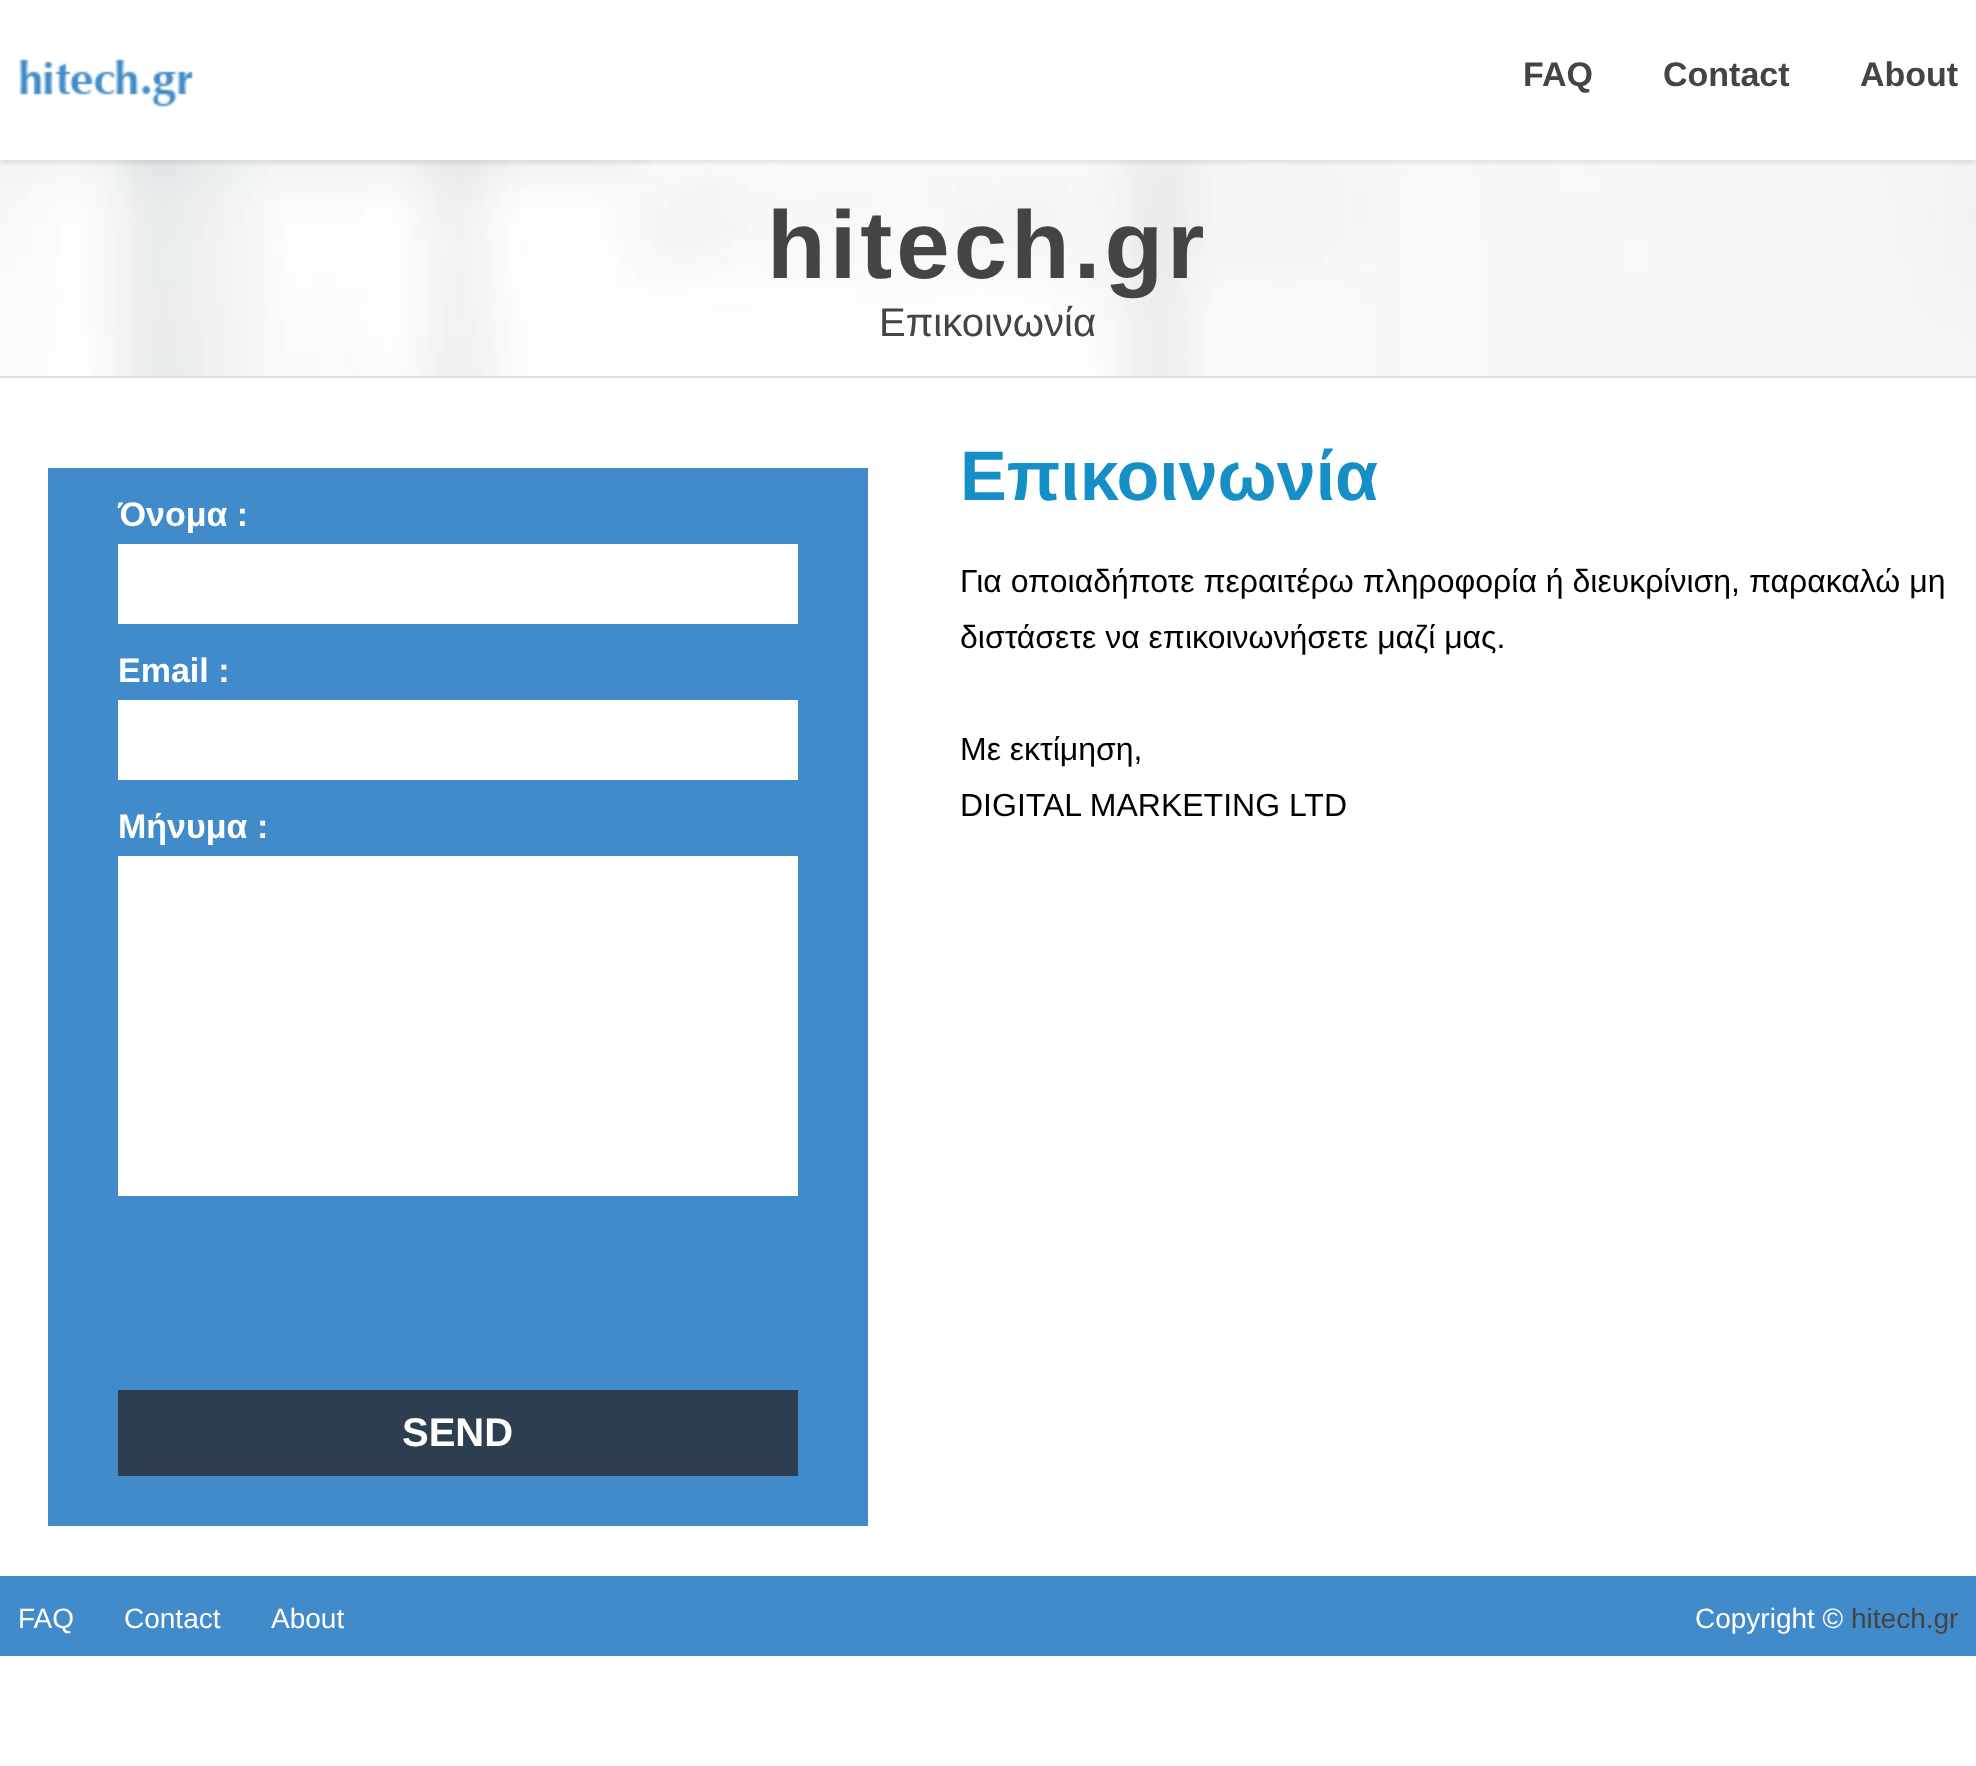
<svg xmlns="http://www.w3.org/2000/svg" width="1976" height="1766">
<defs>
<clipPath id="clip1"><rect x="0" y="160" width="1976" height="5"/></clipPath>
</defs>
<rect width="100%" height="100%" fill="#fff"/>
<image x="0" y="160" width="1976" height="216" href="media/2.png"/>
<g clip-path="url(#clip1)">
<rect y="2" width="1976" height="160" fill="#0000001f" filter="blur(3px)"/>
</g>
<image x="19" y="59" width="175" height="48" href="media/1.png"/>
<text x="1523" y="86" style="font-family:Liberation Sans;font-size:34px;font-weight:bold;fill:#444">FAQ</text>
<text x="1663" y="86" style="font-family:Liberation Sans;font-size:34px;font-weight:bold;fill:#444">Contact</text>
<text x="1860" y="86" style="font-family:Liberation Sans;font-size:34px;font-weight:bold;fill:#444">About</text>
<rect y="376" width="1976" height="2" fill="#ddd"/>
<text x="767" y="278" style="font-family:Liberation Sans;font-size:96px;font-weight:bold;letter-spacing:4px;fill:#444">hitech.gr</text>
<text x="879" y="336" style="font-family:Liberation Sans;font-size:40px;fill:#444">Επικοινωνία</text>
<rect x="48" y="468" width="820" height="1058" fill="#428bca"/>
<text x="118" y="526" style="font-family:Liberation Sans;font-size:34px;font-weight:bold;fill:#fff">Όνομα :</text>
<rect x="118" y="544" width="680" height="80" fill="#fff"/>
<text x="118" y="682" style="font-family:Liberation Sans;font-size:34px;font-weight:bold;fill:#fff">Email :</text>
<rect x="118" y="700" width="680" height="80" fill="#fff"/>
<text x="118" y="838" style="font-family:Liberation Sans;font-size:34px;font-weight:bold;fill:#fff">Μήνυμα :</text>
<rect x="118" y="856" width="680" height="340" fill="#fff"/>
<rect x="118" y="1390" width="680" height="86" fill="#2c3e50"/>
<text x="402" y="1446" style="font-family:Liberation Sans;font-size:40px;font-weight:bold;fill:#fff">SEND</text>
<text x="960" y="500" style="font-family:Liberation Sans;font-size:70px;font-weight:bold;fill:#168fc7">Επικοινωνία</text>
<text x="960" y="592" style="font-family:Liberation Sans;font-size:32px;fill:#000">Για οποιαδήποτε περαιτέρω πληροφορία ή διευκρίνιση, παρακαλώ μη</text>
<text x="960" y="648" style="font-family:Liberation Sans;font-size:32px;fill:#000">διστάσετε να επικοινωνήσετε μαζί μας.</text>
<text x="960" y="760" style="font-family:Liberation Sans;font-size:32px;fill:#000">Με εκτίμηση,</text>
<text x="960" y="816" style="font-family:Liberation Sans;font-size:32px;fill:#000">DIGITAL MARKETING LTD</text>
<rect y="1576" width="1976" height="80" fill="#428bca"/>
<text x="18" y="1628" style="font-family:Liberation Sans;font-size:28px;fill:#fff">FAQ</text>
<text x="124" y="1628" style="font-family:Liberation Sans;font-size:28px;fill:#fff">Contact</text>
<text x="271" y="1628" style="font-family:Liberation Sans;font-size:28px;fill:#fff">About</text>
<text x="1695" y="1628" style="font-family:Liberation Sans;font-size:28px;fill:#fff">Copyright ©</text>
<text x="1851" y="1628" style="font-family:Liberation Sans;font-size:28px;fill:#444">hitech.gr</text>
</svg>
